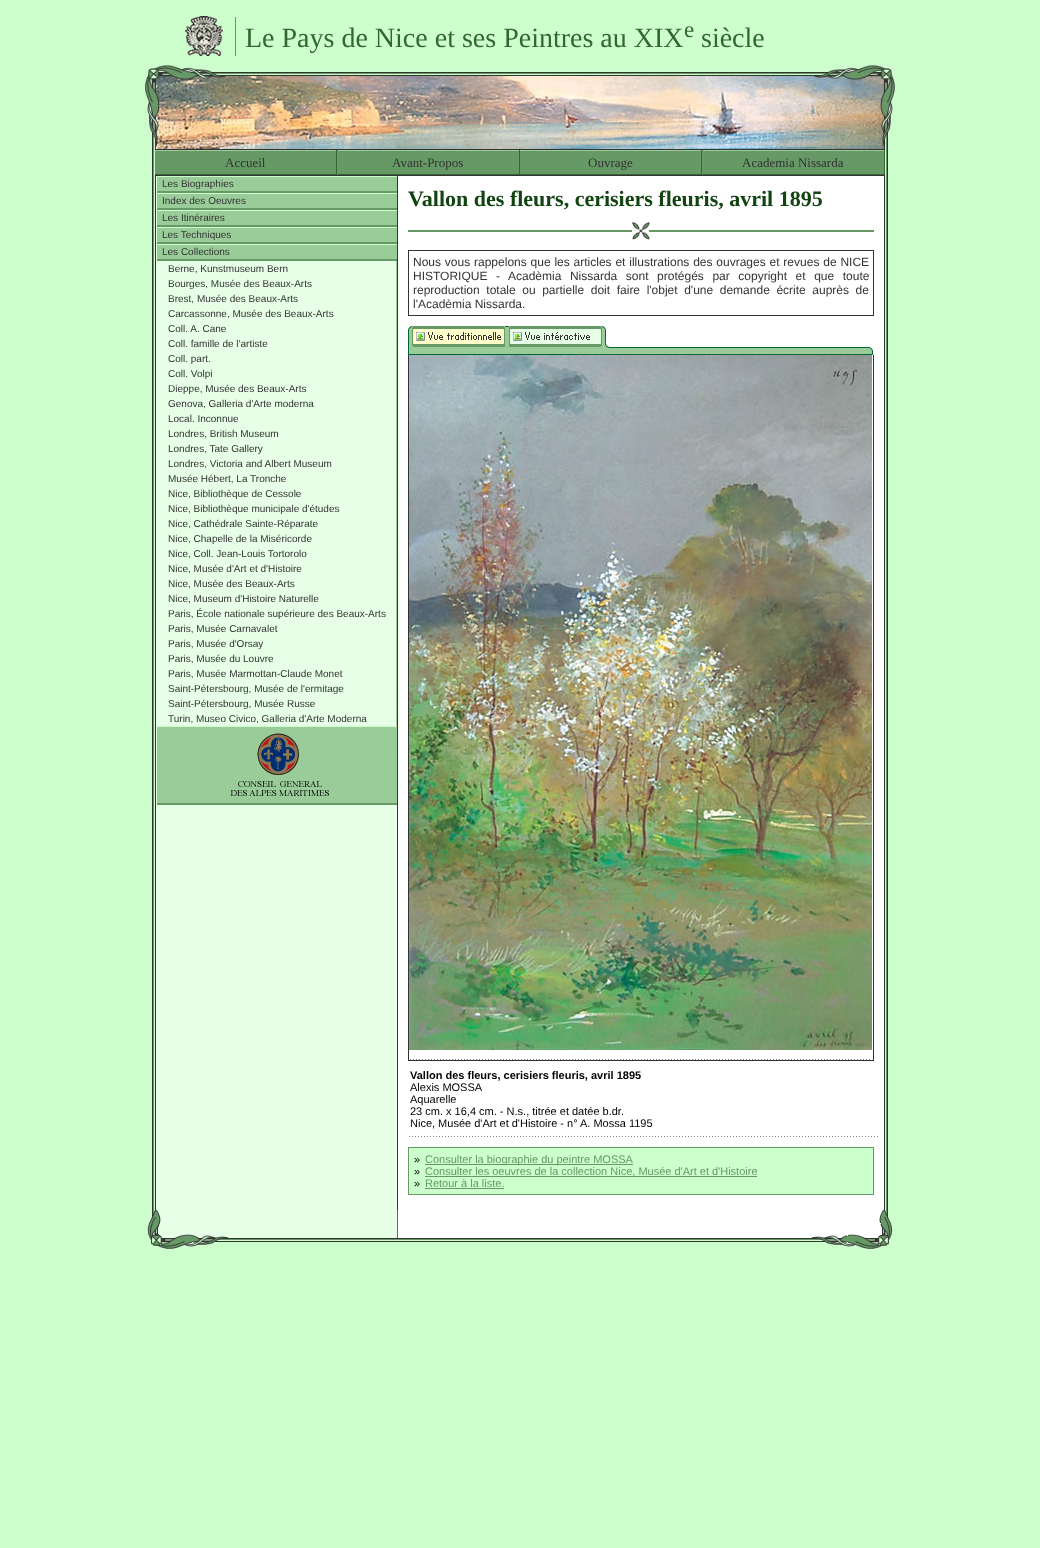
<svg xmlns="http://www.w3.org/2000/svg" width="1040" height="1548">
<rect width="100%" height="100%" fill="#cfc"/>
<image x="185" y="16" width="51" height="40" href="media/1.png"/>
<text x="245" y="47" style="font-family:Liberation Serif;font-size:28px;fill:#363">Le Pays de Nice et ses Peintres au XIX</text>
<text x="684" y="37" style="font-family:Liberation Serif;font-size:23px;fill:#363">e</text>
<text x="701" y="47" style="font-family:Liberation Serif;font-size:28px;fill:#363">siècle</text>
<image x="145" y="65" width="750" height="84" href="media/2.png"/>
<image x="152" y="149" width="736" height="1094" href="media/3.png"/>
<rect x="155" y="150" width="729" height="25" fill="#696"/>
<rect x="155" y="149" width="730" height="1" fill="#333"/>
<rect x="155" y="175" width="730" height="1" fill="#333"/>
<rect x="155" y="150" width="182" height="1" fill="#9c9"/>
<rect x="336" y="150" width="1" height="25" fill="#363"/>
<rect x="155" y="174" width="182" height="1" fill="#363"/>
<text x="225" y="167" style="font-family:Liberation Serif;font-size:13px;fill:#333">Accueil</text>
<rect x="338" y="150" width="364" height="1" fill="#9c9"/>
<rect x="519" y="150" width="1" height="25" fill="#363"/>
<rect x="338" y="174" width="182" height="1" fill="#363"/>
<text x="392" y="167" style="font-family:Liberation Serif;font-size:13px;fill:#333">Avant-Propos</text>
<rect x="701" y="150" width="1" height="25" fill="#363"/>
<rect x="520" y="174" width="182" height="1" fill="#363"/>
<text x="588" y="167" style="font-family:Liberation Serif;font-size:13px;fill:#333">Ouvrage</text>
<rect x="703" y="150" width="182" height="1" fill="#9c9"/>
<rect x="884" y="150" width="1" height="25" fill="#363"/>
<rect x="703" y="174" width="182" height="1" fill="#363"/>
<text x="742" y="167" style="font-family:Liberation Serif;font-size:13px;fill:#333">Academia Nissarda</text>
<rect x="397" y="176" width="1" height="1034" fill="#333"/>
<rect x="157" y="177" width="240" height="14" fill="#9c9"/>
<rect x="157" y="176" width="240" height="1" fill="#cfc"/>
<rect x="157" y="191" width="240" height="2" fill="#696"/>
<text x="162" y="187" style="font-family:Liberation Sans;font-size:10px;fill:#333">Les Biographies</text>
<rect x="157" y="194" width="240" height="14" fill="#9c9"/>
<rect x="157" y="193" width="240" height="1" fill="#cfc"/>
<rect x="157" y="208" width="240" height="2" fill="#696"/>
<text x="162" y="204" style="font-family:Liberation Sans;font-size:10px;fill:#333">Index des Oeuvres</text>
<rect x="157" y="211" width="240" height="14" fill="#9c9"/>
<rect x="157" y="210" width="240" height="1" fill="#cfc"/>
<rect x="157" y="225" width="240" height="2" fill="#696"/>
<text x="162" y="221" style="font-family:Liberation Sans;font-size:10px;fill:#333">Les Itinéraires</text>
<rect x="157" y="228" width="240" height="14" fill="#9c9"/>
<rect x="157" y="227" width="240" height="1" fill="#cfc"/>
<rect x="157" y="242" width="240" height="2" fill="#696"/>
<text x="162" y="238" style="font-family:Liberation Sans;font-size:10px;fill:#333">Les Techniques</text>
<rect x="157" y="245" width="240" height="14" fill="#9c9"/>
<rect x="157" y="244" width="240" height="1" fill="#cfc"/>
<rect x="157" y="259" width="240" height="2" fill="#696"/>
<text x="162" y="255" style="font-family:Liberation Sans;font-size:10px;fill:#333">Les Collections</text>
<rect x="396" y="261" width="1" height="465" fill="#9c9"/>
<text x="168" y="272" style="font-family:Liberation Sans;font-size:10px;fill:#333">Berne, Kunstmuseum Bern</text>
<text x="168" y="287" style="font-family:Liberation Sans;font-size:10px;fill:#333">Bourges, Musée des Beaux-Arts</text>
<text x="168" y="302" style="font-family:Liberation Sans;font-size:10px;fill:#333">Brest, Musée des Beaux-Arts</text>
<text x="168" y="317" style="font-family:Liberation Sans;font-size:10px;fill:#333">Carcassonne, Musée des Beaux-Arts</text>
<text x="168" y="332" style="font-family:Liberation Sans;font-size:10px;fill:#333">Coll. A. Cane</text>
<text x="168" y="347" style="font-family:Liberation Sans;font-size:10px;fill:#333">Coll. famille de l'artiste</text>
<text x="168" y="362" style="font-family:Liberation Sans;font-size:10px;fill:#333">Coll. part.</text>
<text x="168" y="377" style="font-family:Liberation Sans;font-size:10px;fill:#333">Coll. Volpi</text>
<text x="168" y="392" style="font-family:Liberation Sans;font-size:10px;fill:#333">Dieppe, Musée des Beaux-Arts</text>
<text x="168" y="407" style="font-family:Liberation Sans;font-size:10px;fill:#333">Genova, Galleria d'Arte moderna</text>
<text x="168" y="422" style="font-family:Liberation Sans;font-size:10px;fill:#333">Local. Inconnue</text>
<text x="168" y="437" style="font-family:Liberation Sans;font-size:10px;fill:#333">Londres, British Museum</text>
<text x="168" y="452" style="font-family:Liberation Sans;font-size:10px;fill:#333">Londres, Tate Gallery</text>
<text x="168" y="467" style="font-family:Liberation Sans;font-size:10px;fill:#333">Londres, Victoria and Albert Museum</text>
<text x="168" y="482" style="font-family:Liberation Sans;font-size:10px;fill:#333">Musée Hébert, La Tronche</text>
<text x="168" y="497" style="font-family:Liberation Sans;font-size:10px;fill:#333">Nice, Bibliothèque de Cessole</text>
<text x="168" y="512" style="font-family:Liberation Sans;font-size:10px;fill:#333">Nice, Bibliothèque municipale d'études</text>
<text x="168" y="527" style="font-family:Liberation Sans;font-size:10px;fill:#333">Nice, Cathédrale Sainte-Réparate</text>
<text x="168" y="542" style="font-family:Liberation Sans;font-size:10px;fill:#333">Nice, Chapelle de la Miséricorde</text>
<text x="168" y="557" style="font-family:Liberation Sans;font-size:10px;fill:#333">Nice, Coll. Jean-Louis Tortorolo</text>
<text x="168" y="572" style="font-family:Liberation Sans;font-size:10px;fill:#333">Nice, Musée d'Art et d'Histoire</text>
<text x="168" y="587" style="font-family:Liberation Sans;font-size:10px;fill:#333">Nice, Musée des Beaux-Arts</text>
<text x="168" y="602" style="font-family:Liberation Sans;font-size:10px;fill:#333">Nice, Museum d'Histoire Naturelle</text>
<text x="168" y="617" style="font-family:Liberation Sans;font-size:10px;fill:#333">Paris, École nationale supérieure des Beaux-Arts</text>
<text x="168" y="632" style="font-family:Liberation Sans;font-size:10px;fill:#333">Paris, Musée Carnavalet</text>
<text x="168" y="647" style="font-family:Liberation Sans;font-size:10px;fill:#333">Paris, Musée d'Orsay</text>
<text x="168" y="662" style="font-family:Liberation Sans;font-size:10px;fill:#333">Paris, Musée du Louvre</text>
<text x="168" y="677" style="font-family:Liberation Sans;font-size:10px;fill:#333">Paris, Musée Marmottan-Claude Monet</text>
<text x="168" y="692" style="font-family:Liberation Sans;font-size:10px;fill:#333">Saint-Pétersbourg, Musée de l'ermitage</text>
<text x="168" y="707" style="font-family:Liberation Sans;font-size:10px;fill:#333">Saint-Pétersbourg, Musée Russe</text>
<text x="168" y="722" style="font-family:Liberation Sans;font-size:10px;fill:#333">Turin, Museo Civico, Galleria d'Arte Moderna</text>
<rect x="157" y="727" width="240" height="76" fill="#9c9"/>
<rect x="157" y="726" width="240" height="1" fill="#cfc"/>
<rect x="157" y="803" width="240" height="2" fill="#696"/>
<image x="230" y="733" width="99" height="63" href="media/4.png"/>
<text x="408" y="206" style="font-family:Liberation Serif;font-size:22px;font-weight:bold;fill:#141">Vallon des fleurs, cerisiers fleuris, avril 1895</text>
<rect x="408" y="230" width="466" height="2" fill="#696"/>
<image x="632" y="222" width="18" height="18" href="media/5.png"/>
<rect x="408.5" y="250.5" width="465" height="65" fill="none" stroke="#333"/>
<text x="413" y="266" word-spacing="0.5" style="font-family:Liberation Sans;font-size:12px;fill:#333">Nous vous rappelons que les articles et illustrations des ouvrages et revues de NICE</text>
<text x="413" y="280" word-spacing="5.25" style="font-family:Liberation Sans;font-size:12px;fill:#333">HISTORIQUE - Acadèmia Nissarda sont protégés par copyright et que toute</text>
<text x="413" y="294" word-spacing="3.25" style="font-family:Liberation Sans;font-size:12px;fill:#333">reproduction totale ou partielle doit faire l'objet d'une demande écrite auprès de</text>
<text x="413" y="308" style="font-family:Liberation Sans;font-size:12px;fill:#333">l'Acadèmia Nissarda.</text>
<image x="408" y="326" width="465" height="29" href="media/6.png"/>
<image x="412" y="326" width="93" height="21" href="media/7.png"/>
<image x="509" y="326" width="93" height="21" href="media/8.png"/>
<rect x="873" y="355" width="1" height="706" fill="#333"/>
<rect x="408" y="1060" width="466" height="1" fill="#333"/>
<rect x="408" y="355" width="1" height="706" fill="#333"/>
<image x="409" y="355" width="463" height="705" href="media/9.png"/>
<image x="409" y="1136" width="469" height="1" href="media/10.png"/>
<text x="410" y="1079" style="font-family:Liberation Sans;font-size:11px;font-weight:bold;fill:#000">Vallon des fleurs, cerisiers fleuris, avril 1895</text>
<text x="410" y="1091" style="font-family:Liberation Sans;font-size:11px;fill:#000">Alexis MOSSA</text>
<text x="410" y="1103" style="font-family:Liberation Sans;font-size:11px;fill:#000">Aquarelle</text>
<text x="410" y="1115" style="font-family:Liberation Sans;font-size:11px;fill:#000">23 cm. x 16,4 cm. - N.s., titrée et datée b.dr.</text>
<text x="410" y="1127" style="font-family:Liberation Sans;font-size:11px;fill:#000">Nice, Musée d'Art et d'Histoire - n° A. Mossa 1195</text>
<rect x="408.5" y="1147.5" width="465" height="47" fill="#cfc" stroke="#696"/>
<text x="414" y="1163" style="font-family:Liberation Sans;font-size:11px;fill:#000">»</text>
<rect x="425" y="1164" width="208" height="1" fill="#696"/>
<text x="425" y="1163" style="font-family:Liberation Sans;font-size:11px;fill:#696">Consulter la biographie du peintre MOSSA</text>
<text x="414" y="1175" style="font-family:Liberation Sans;font-size:11px;fill:#000">»</text>
<rect x="425" y="1176" width="332" height="1" fill="#696"/>
<text x="425" y="1175" style="font-family:Liberation Sans;font-size:11px;fill:#696">Consulter les oeuvres de la collection Nice, Musée d'Art et d'Histoire</text>
<text x="414" y="1187" style="font-family:Liberation Sans;font-size:11px;fill:#000">»</text>
<text x="425" y="1187" style="font-family:Liberation Sans;font-size:11px;fill:#696">Retour à la liste.</text>
<rect x="425" y="1188" width="79" height="1" fill="#696"/>
<image x="147" y="1210" width="746" height="39" href="media/11.png"/>
</svg>
